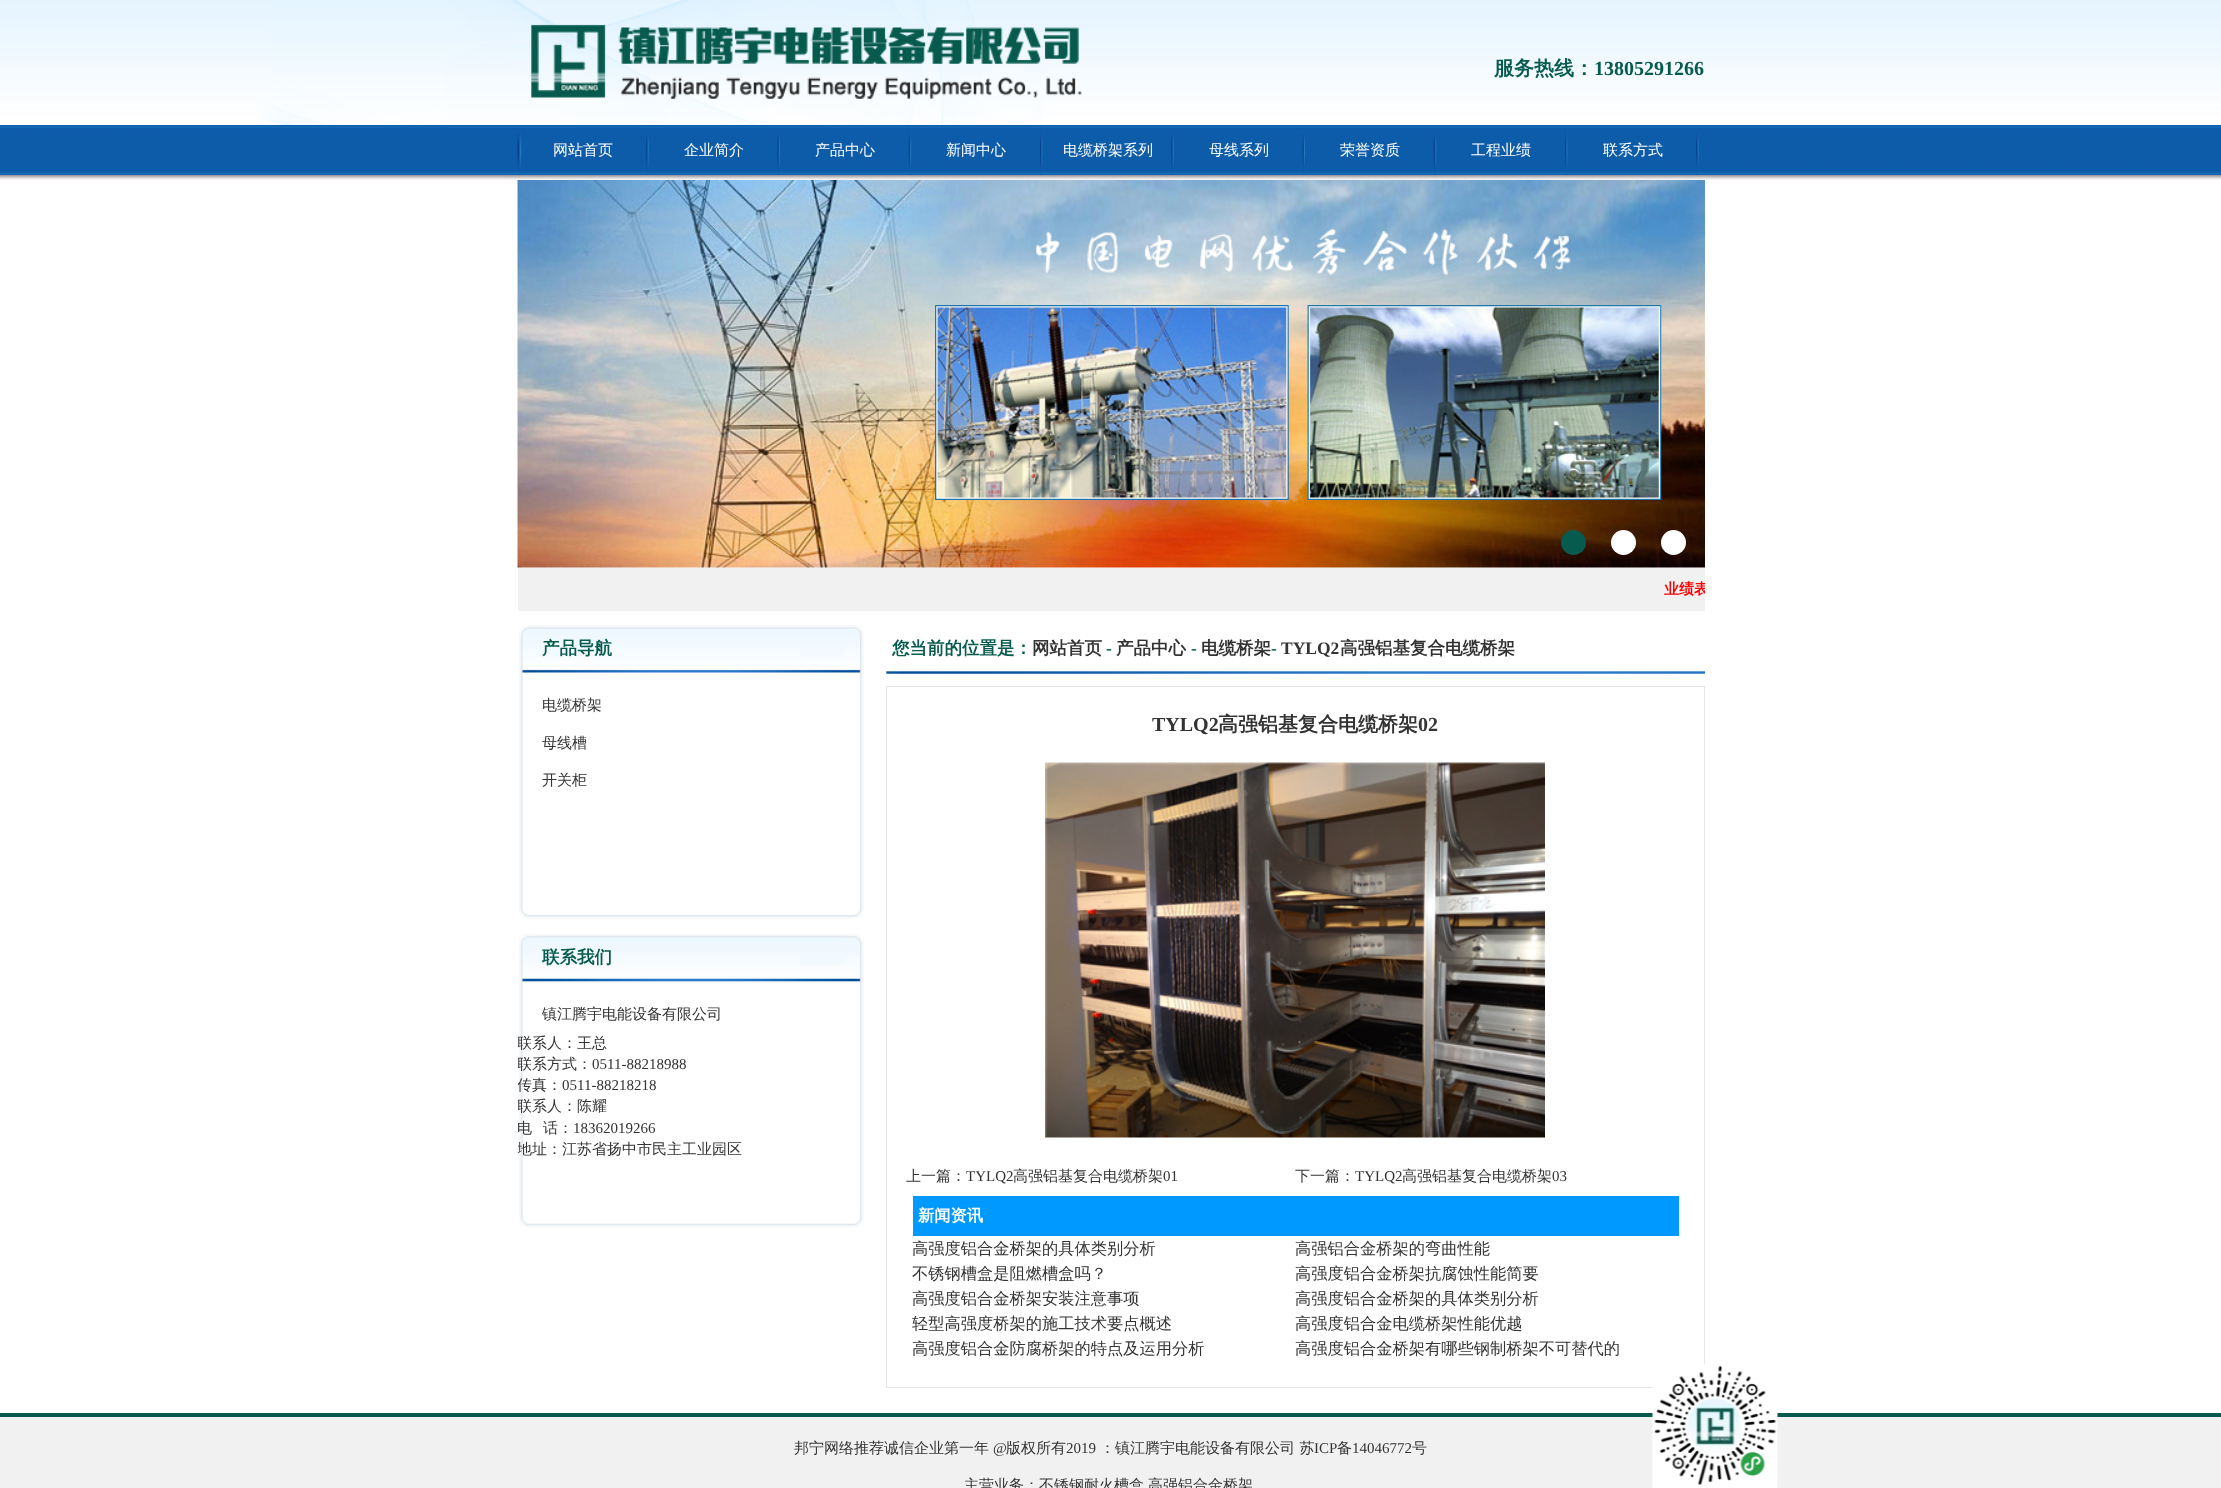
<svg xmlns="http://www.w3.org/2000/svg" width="2221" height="1488">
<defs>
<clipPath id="clip1"><rect x="518" y="568" width="1187" height="43"/></clipPath>
<clipPath id="clip2"><rect x="518" y="611" width="1187" height="789"/></clipPath>
</defs>
<rect width="100%" height="100%" fill="#fff"/>
<image x="0" y="0" width="2221" height="125" href="media/1.png"/>
<image x="531" y="24" width="551" height="75" href="media/2.png"/>
<text x="1494" y="75" style="font-family:WenQuanYi Zen Hei;font-size:20px;font-weight:bold;fill:#075b4e">服务热线：</text>
<text x="1594" y="75" style="font-family:Liberation Serif;font-size:20px;font-weight:bold;fill:#075b4e">13805291266</text>
<image x="0" y="125" width="2221" height="55" href="media/3.png"/>
<image x="517" y="133" width="5" height="42" href="media/4.png"/>
<image x="646" y="133" width="3" height="42" href="media/5.png"/>
<text x="553" y="155" style="font-family:WenQuanYi Zen Hei;font-size:15px;font-weight:500;fill:#fff">网站首页</text>
<image x="777" y="134" width="3" height="41" href="media/6.png"/>
<text x="684" y="155" style="font-family:WenQuanYi Zen Hei;font-size:15px;font-weight:500;fill:#fff">企业简介</text>
<image x="908" y="133" width="4" height="42" href="media/7.png"/>
<text x="815" y="155" style="font-family:WenQuanYi Zen Hei;font-size:15px;font-weight:500;fill:#fff">产品中心</text>
<image x="1040" y="133" width="3" height="42" href="media/8.png"/>
<text x="946" y="155" style="font-family:WenQuanYi Zen Hei;font-size:15px;font-weight:500;fill:#fff">新闻中心</text>
<image x="1171" y="133" width="3" height="42" href="media/5.png"/>
<text x="1063" y="155" style="font-family:WenQuanYi Zen Hei;font-size:15px;font-weight:500;fill:#fff">电缆桥架系列</text>
<image x="1302" y="134" width="3" height="41" href="media/6.png"/>
<text x="1209" y="155" style="font-family:WenQuanYi Zen Hei;font-size:15px;font-weight:500;fill:#fff">母线系列</text>
<image x="1433" y="132" width="4" height="43" href="media/9.png"/>
<text x="1340" y="155" style="font-family:WenQuanYi Zen Hei;font-size:15px;font-weight:500;fill:#fff">荣誉资质</text>
<image x="1565" y="133" width="3" height="42" href="media/8.png"/>
<text x="1471" y="155" style="font-family:WenQuanYi Zen Hei;font-size:15px;font-weight:500;fill:#fff">工程业绩</text>
<image x="1696" y="133" width="3" height="42" href="media/5.png"/>
<text x="1603" y="155" style="font-family:WenQuanYi Zen Hei;font-size:15px;font-weight:500;fill:#fff">联系方式</text>
<image x="517" y="180" width="1188" height="388" href="media/10.png"/>
<image x="935" y="305" width="727" height="195" href="media/11.png"/>
<circle cx="1573.5" cy="542.5" r="12.5" fill="#075b4e"/>
<circle cx="1623.5" cy="542.5" r="12.5" fill="#fff"/>
<circle cx="1673.5" cy="542.5" r="12.5" fill="#fff"/>
<rect x="518" y="568" width="1187" height="43" fill="#f1f1f1"/>
<g clip-path="url(#clip1)">
<text x="1664" y="594" style="font-family:WenQuanYi Zen Hei;font-size:15px;font-weight:bold;fill:#f00">业绩表</text>
</g>
<image x="519" y="625" width="345" height="294" href="media/12.png"/>
<text x="542" y="654" style="font-family:WenQuanYi Zen Hei;font-size:17.5px;font-weight:bold;fill:#075b4e">产品导航</text>
<text x="542" y="710" style="font-family:WenQuanYi Zen Hei;font-size:15px;font-weight:500;fill:#333">电缆桥架</text>
<text x="542" y="748" style="font-family:WenQuanYi Zen Hei;font-size:15px;font-weight:500;fill:#333">母线槽</text>
<text x="542" y="785" style="font-family:WenQuanYi Zen Hei;font-size:15px;font-weight:500;fill:#333">开关柜</text>
<image x="519" y="934" width="345" height="294" href="media/13.png"/>
<text x="542" y="963" style="font-family:WenQuanYi Zen Hei;font-size:17.5px;font-weight:bold;fill:#075b4e">联系我们</text>
<text x="542" y="1019" style="font-family:WenQuanYi Zen Hei;font-size:15px;font-weight:500;fill:#333">镇江腾宇电能设备有限公司</text>
<g clip-path="url(#clip2)">
<text x="517" y="1048" style="font-family:WenQuanYi Zen Hei;font-size:15px;font-weight:500;fill:#333">联系人：王总</text>
<text x="517" y="1069" style="font-family:WenQuanYi Zen Hei;font-size:15px;font-weight:500;fill:#333">联系方式：</text>
</g>
<text x="592" y="1069" style="font-family:Liberation Serif;font-size:15px;fill:#333">0511-88218988</text>
<g clip-path="url(#clip2)">
<text x="517" y="1090" style="font-family:WenQuanYi Zen Hei;font-size:15px;font-weight:500;fill:#333">传真：</text>
</g>
<text x="562" y="1090" style="font-family:Liberation Serif;font-size:15px;fill:#333">0511-88218218</text>
<g clip-path="url(#clip2)">
<text x="517" y="1111" style="font-family:WenQuanYi Zen Hei;font-size:15px;font-weight:500;fill:#333">联系人：陈耀</text>
</g>
<text x="517" y="1133" style="font-family:WenQuanYi Zen Hei;font-size:15px;font-weight:500;fill:#333">电</text>
<text x="543" y="1133" style="font-family:WenQuanYi Zen Hei;font-size:15px;font-weight:500;fill:#333">话：</text>
<text x="573" y="1133" style="font-family:Liberation Serif;font-size:15px;fill:#333">18362019266</text>
<g clip-path="url(#clip2)">
<text x="517" y="1154" style="font-family:WenQuanYi Zen Hei;font-size:15px;font-weight:500;fill:#333">地址：江苏省扬中市民主工业园区</text>
</g>
<image x="886" y="671" width="819" height="3" href="media/14.png"/>
<text x="892" y="654" style="font-family:WenQuanYi Zen Hei;font-size:17.5px;font-weight:bold;fill:#075b4e">您当前的位置是：</text>
<text x="1032" y="654" style="font-family:WenQuanYi Zen Hei;font-size:17.5px;font-weight:bold;fill:#333">网站首页</text>
<text x="1106" y="654" style="font-family:Liberation Serif;font-size:17.5px;font-weight:bold;fill:#075b4e">-</text>
<text x="1116" y="654" style="font-family:WenQuanYi Zen Hei;font-size:17.5px;font-weight:bold;fill:#333">产品中心</text>
<text x="1191" y="654" style="font-family:Liberation Serif;font-size:17.5px;font-weight:bold;fill:#075b4e">-</text>
<text x="1201" y="654" style="font-family:WenQuanYi Zen Hei;font-size:17.5px;font-weight:bold;fill:#333">电缆桥架</text>
<text x="1271" y="654" style="font-family:Liberation Serif;font-size:17.5px;font-weight:bold;fill:#075b4e">-</text>
<text x="1281" y="654" style="font-family:Liberation Serif;font-size:17.5px;font-weight:bold;fill:#333">TYLQ2</text>
<text x="1340" y="654" style="font-family:WenQuanYi Zen Hei;font-size:17.5px;font-weight:bold;fill:#333">高强铝基复合电缆桥架</text>
<rect x="886.5" y="686.5" width="818" height="701" fill="none" stroke="#e6e6e6"/>
<text x="1152" y="731" style="font-family:Liberation Serif;font-size:20px;font-weight:bold;fill:#333">TYLQ2</text>
<text x="1218" y="731" style="font-family:WenQuanYi Zen Hei;font-size:20px;font-weight:bold;fill:#333">高强铝基复合电缆桥架</text>
<text x="1418" y="731" style="font-family:Liberation Serif;font-size:20px;font-weight:bold;fill:#333">02</text>
<image x="1045" y="762" width="500" height="376" href="media/15.png"/>
<text x="906" y="1181" style="font-family:WenQuanYi Zen Hei;font-size:15px;font-weight:500;fill:#333">上一篇：</text>
<text x="966" y="1181" style="font-family:Liberation Serif;font-size:15px;fill:#333">TYLQ2</text>
<text x="1013" y="1181" style="font-family:WenQuanYi Zen Hei;font-size:15px;font-weight:500;fill:#333">高强铝基复合电缆桥架</text>
<text x="1163" y="1181" style="font-family:Liberation Serif;font-size:15px;fill:#333">01</text>
<text x="1295" y="1181" style="font-family:WenQuanYi Zen Hei;font-size:15px;font-weight:500;fill:#333">下一篇：</text>
<text x="1355" y="1181" style="font-family:Liberation Serif;font-size:15px;fill:#333">TYLQ2</text>
<text x="1402" y="1181" style="font-family:WenQuanYi Zen Hei;font-size:15px;font-weight:500;fill:#333">高强铝基复合电缆桥架</text>
<text x="1552" y="1181" style="font-family:Liberation Serif;font-size:15px;fill:#333">03</text>
<rect x="913" y="1196" width="766" height="40" fill="#09f"/>
<text x="918" y="1221" style="font-family:WenQuanYi Zen Hei;font-size:16.25px;font-weight:bold;fill:#fff">新闻资讯</text>
<text x="912" y="1254" style="font-family:WenQuanYi Zen Hei;font-size:16.25px;font-weight:500;fill:#333">高强度铝合金桥架的具体类别分析</text>
<text x="1295" y="1254" style="font-family:WenQuanYi Zen Hei;font-size:16.25px;font-weight:500;fill:#333">高强铝合金桥架的弯曲性能</text>
<text x="912" y="1279" style="font-family:WenQuanYi Zen Hei;font-size:16.25px;font-weight:500;fill:#333">不锈钢槽盒是阻燃槽盒吗？</text>
<text x="1295" y="1279" style="font-family:WenQuanYi Zen Hei;font-size:16.25px;font-weight:500;fill:#333">高强度铝合金桥架抗腐蚀性能简要</text>
<text x="912" y="1304" style="font-family:WenQuanYi Zen Hei;font-size:16.25px;font-weight:500;fill:#333">高强度铝合金桥架安装注意事项</text>
<text x="1295" y="1304" style="font-family:WenQuanYi Zen Hei;font-size:16.25px;font-weight:500;fill:#333">高强度铝合金桥架的具体类别分析</text>
<text x="912" y="1329" style="font-family:WenQuanYi Zen Hei;font-size:16.25px;font-weight:500;fill:#333">轻型高强度桥架的施工技术要点概述</text>
<text x="1295" y="1329" style="font-family:WenQuanYi Zen Hei;font-size:16.25px;font-weight:500;fill:#333">高强度铝合金电缆桥架性能优越</text>
<text x="912" y="1354" style="font-family:WenQuanYi Zen Hei;font-size:16.25px;font-weight:500;fill:#333">高强度铝合金防腐桥架的特点及运用分析</text>
<text x="1295" y="1354" style="font-family:WenQuanYi Zen Hei;font-size:16.25px;font-weight:500;fill:#333">高强度铝合金桥架有哪些钢制桥架不可替代的</text>
<rect y="1417" width="2221" height="71" fill="#f1f1f1"/>
<rect y="1413" width="2221" height="4" fill="#075b4e"/>
<text x="794" y="1453" style="font-family:WenQuanYi Zen Hei;font-size:15px;font-weight:500;fill:#333">邦宁网络推荐诚信企业第一年</text>
<text x="993" y="1453" style="font-family:Liberation Serif;font-size:15px;fill:#333">@</text>
<text x="1006" y="1453" style="font-family:WenQuanYi Zen Hei;font-size:15px;font-weight:500;fill:#333">版权所有</text>
<text x="1066" y="1453" style="font-family:Liberation Serif;font-size:15px;fill:#333">2019</text>
<text x="1100" y="1453" style="font-family:WenQuanYi Zen Hei;font-size:15px;font-weight:500;fill:#333">：镇江腾宇电能设备有限公司 苏</text>
<text x="1314" y="1453" style="font-family:Liberation Serif;font-size:15px;fill:#333">ICP</text>
<text x="1337" y="1453" style="font-family:WenQuanYi Zen Hei;font-size:15px;font-weight:500;fill:#333">备</text>
<text x="1352" y="1453" style="font-family:Liberation Serif;font-size:15px;fill:#333">14046772</text>
<text x="1412" y="1453" style="font-family:WenQuanYi Zen Hei;font-size:15px;font-weight:500;fill:#333">号</text>
<text x="964" y="1490" style="font-family:WenQuanYi Zen Hei;font-size:15px;font-weight:500;fill:#333">主营业务：不锈钢耐火槽盒</text>
<text x="1148" y="1490" style="font-family:WenQuanYi Zen Hei;font-size:15px;font-weight:500;fill:#333">高强铝合金桥架</text>
<image x="1652" y="1363" width="126" height="125" href="media/16.png"/>
</svg>
